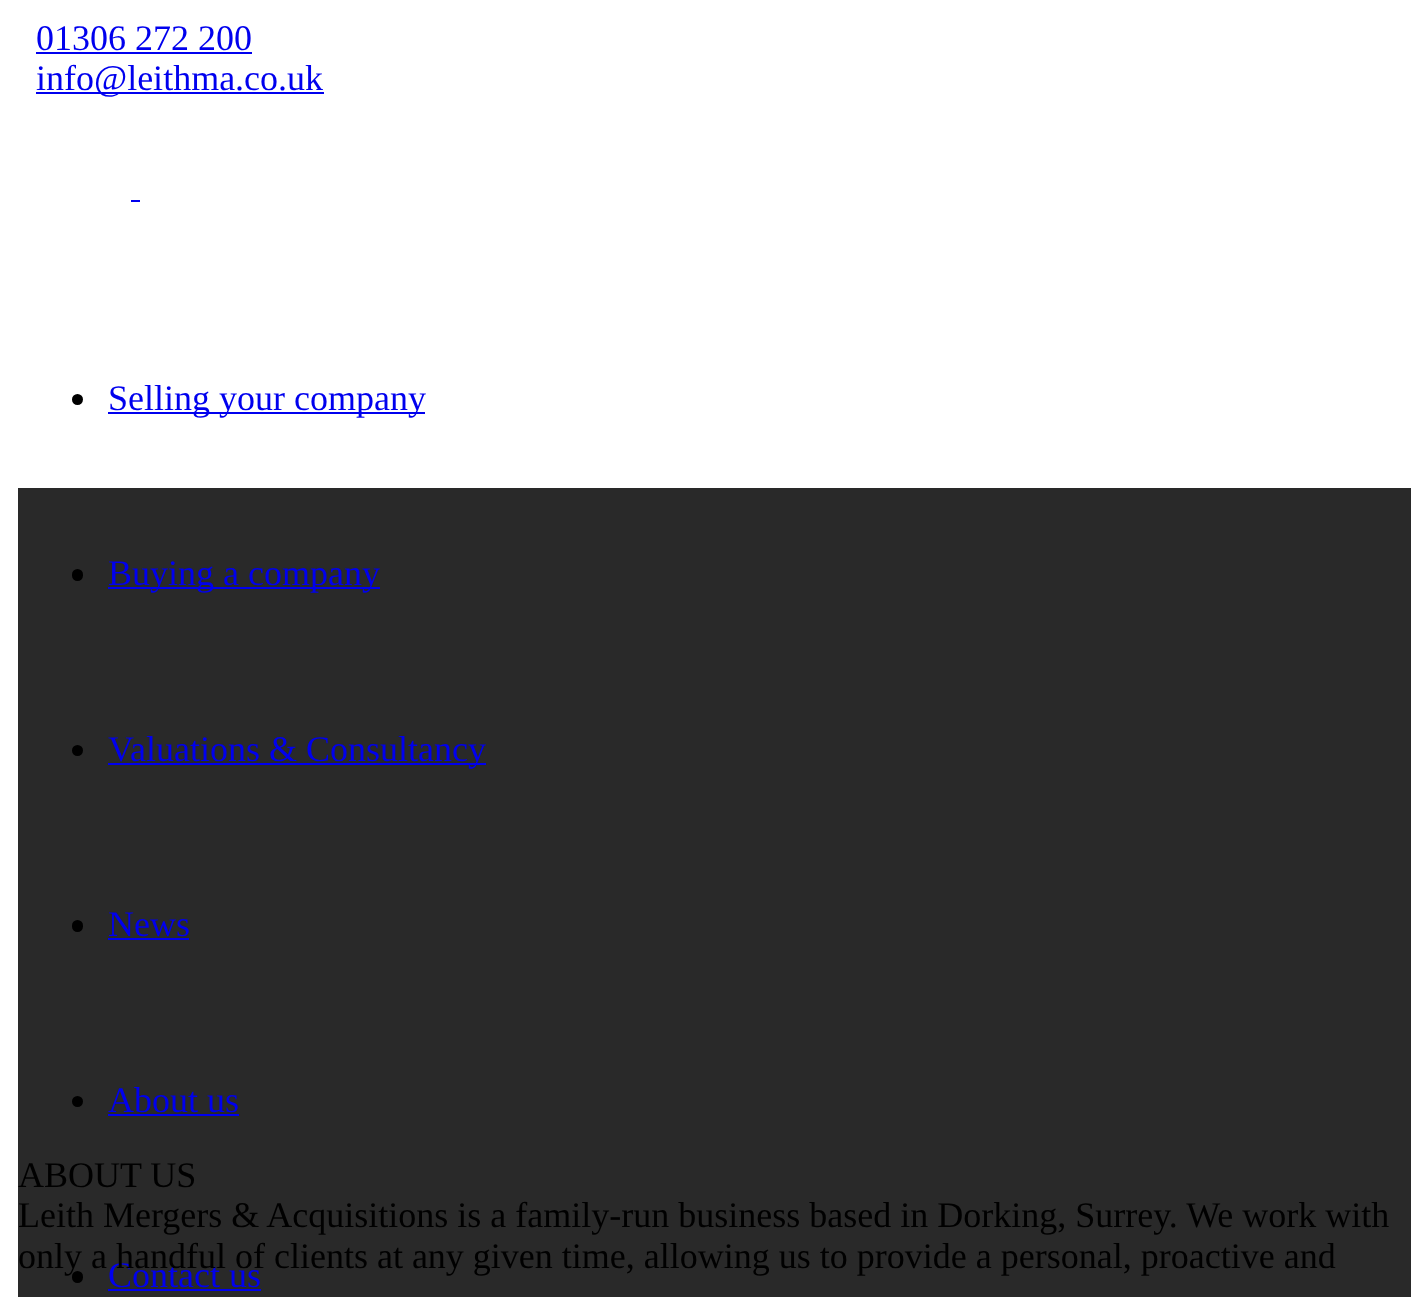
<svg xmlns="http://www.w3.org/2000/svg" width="1427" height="1297">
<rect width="100%" height="100%" fill="#fff"/>
<text x="36" y="50" style="font-family:Liberation Serif;font-size:36px;fill:#00e">01306 272 200</text>
<rect x="36" y="52" width="216" height="2" fill="#00e"/>
<rect x="36" y="92" width="288" height="2" fill="#00e"/>
<text x="36" y="90" style="font-family:Liberation Serif;font-size:36px;fill:#00e">info@leithma.co.uk</text>
<rect x="131" y="200" width="9" height="2" fill="#00e"/>
<circle cx="77.5" cy="399.5" r="5.5" fill="#000"/>
<rect x="108" y="412" width="317" height="2" fill="#00e"/>
<text x="108" y="410" style="font-family:Liberation Serif;font-size:36px;fill:#00e">Selling your company</text>
<rect x="18" y="488" width="1393" height="809" fill="#292929"/>
<rect x="72" y="569" width="11" height="12" rx="5.5" fill="#000"/>
<rect x="108" y="587" width="272" height="2" fill="#00e"/>
<text x="108" y="585" style="font-family:Liberation Serif;font-size:36px;fill:#00e">Buying a company</text>
<circle cx="77.5" cy="750.5" r="5.5" fill="#000"/>
<rect x="108" y="763" width="378" height="2" fill="#00e"/>
<text x="108" y="761" style="font-family:Liberation Serif;font-size:36px;fill:#00e">Valuations &amp; Consultancy</text>
<rect x="72" y="920" width="11" height="12" rx="5.5" fill="#000"/>
<text x="108" y="936" style="font-family:Liberation Serif;font-size:36px;fill:#00e">News</text>
<rect x="108" y="938" width="81" height="2" fill="#00e"/>
<circle cx="77.5" cy="1101.5" r="5.5" fill="#000"/>
<text x="108" y="1112" style="font-family:Liberation Serif;font-size:36px;fill:#00e">About us</text>
<rect x="108" y="1114" width="131" height="2" fill="#00e"/>
<rect x="72" y="1271" width="11" height="12" rx="5.5" fill="#000"/>
<text x="108" y="1287" style="font-family:Liberation Serif;font-size:36px;fill:#00e">Contact us</text>
<rect x="108" y="1289" width="153" height="2" fill="#00e"/>
<text x="18" y="1187" style="font-family:Liberation Serif;font-size:36px;fill:#000">ABOUT US</text>
<text x="18" y="1227" style="font-family:Liberation Serif;font-size:36px;fill:#000">Leith Mergers &amp; Acquisitions is a family-run business based in Dorking, Surrey. We work with</text>
<text x="18" y="1268" style="font-family:Liberation Serif;font-size:36px;fill:#000">only a handful of clients at any given time, allowing us to provide a personal, proactive and</text>
</svg>
